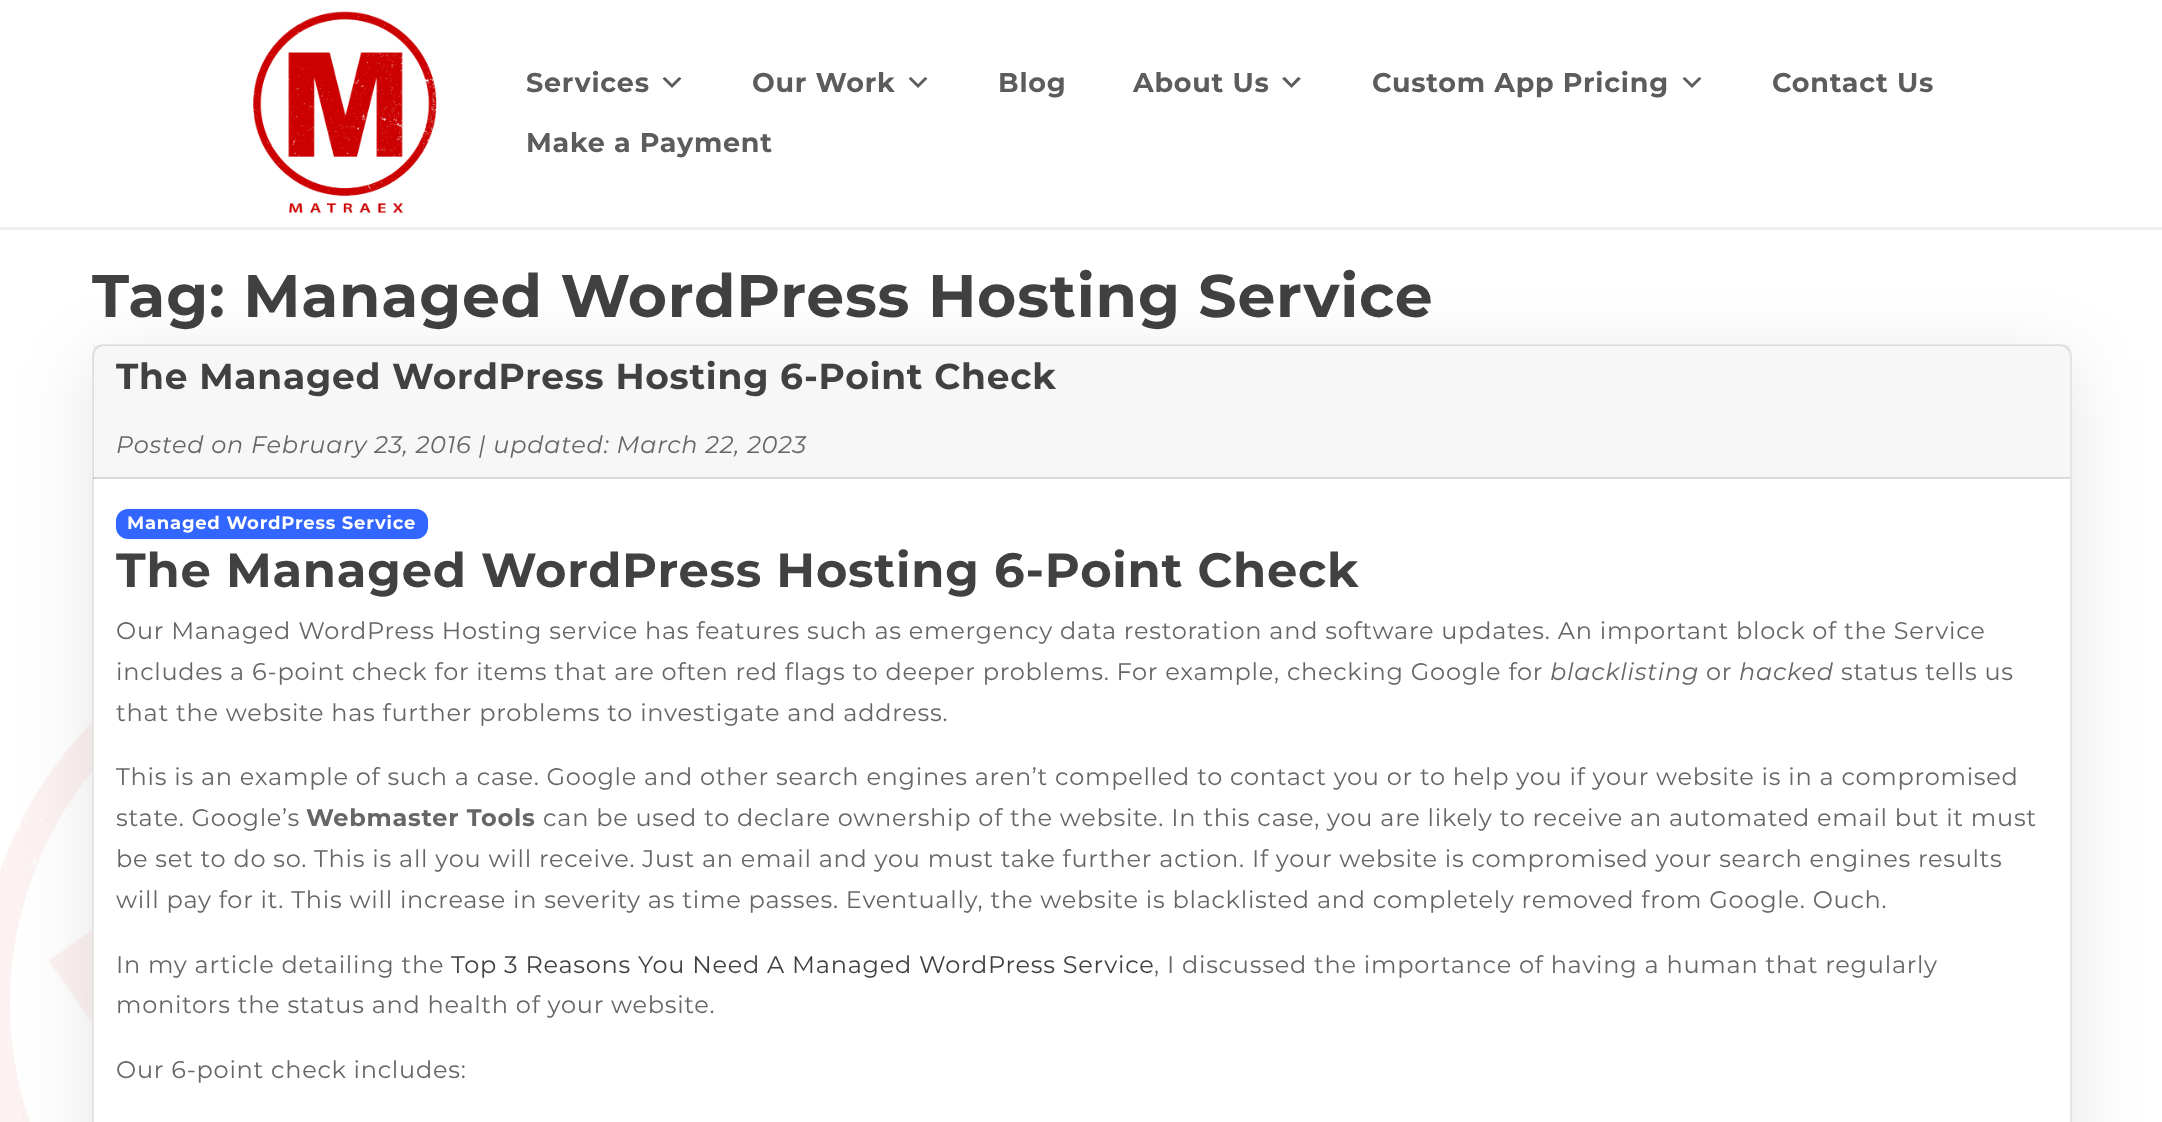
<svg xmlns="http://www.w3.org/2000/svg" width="2162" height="1122">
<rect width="100%" height="100%" fill="#fff"/>
<image x="0" y="723" width="92" height="399" href="media/1.png"/>
<rect y="227" width="2162" height="3" fill="#eee"/>
<image x="253" y="11" width="184" height="203" href="media/2.png"/>
<text x="526" y="92" style="font-family:Montserrat;font-size:27px;font-weight:bold;letter-spacing:0.75px;fill:#5c5c5c">Services</text>
<path d="M665 77l7 7l7-7l2.5 1.5l-9.5 9.5l-9.5-9.5z" fill="#5c5c5c"/>
<text x="752" y="92" style="font-family:Montserrat;font-size:27px;font-weight:bold;letter-spacing:0.75px;fill:#5c5c5c">Our Work</text>
<path d="M911 77l7 7l7-7l2.5 1.5l-9.5 9.5l-9.5-9.5z" fill="#5c5c5c"/>
<text x="998" y="92" style="font-family:Montserrat;font-size:27px;font-weight:bold;letter-spacing:0.75px;fill:#5c5c5c">Blog</text>
<text x="1133" y="92" style="font-family:Montserrat;font-size:27px;font-weight:bold;letter-spacing:0.75px;fill:#5c5c5c">About Us</text>
<path d="M1285 77l6.5 7l6.5-7l3 1.5l-9.5 9.5l-9.5-9.5z" fill="#5c5c5c"/>
<text x="1372" y="92" style="font-family:Montserrat;font-size:27px;font-weight:bold;letter-spacing:0.75px;fill:#5c5c5c">Custom App Pricing</text>
<path d="M1685 77l7 7l7-7l2.5 1.5l-9.5 9.5l-9.5-9.5z" fill="#5c5c5c"/>
<text x="1772" y="92" style="font-family:Montserrat;font-size:27px;font-weight:bold;letter-spacing:0.75px;fill:#5c5c5c">Contact Us</text>
<text x="526" y="152" style="font-family:Montserrat;font-size:27px;font-weight:bold;letter-spacing:0.75px;fill:#5c5c5c">Make a Payment</text>
<text x="92" y="317" style="font-family:Montserrat;font-size:60px;font-weight:bold;letter-spacing:0.75px;fill:#414141">Tag: Managed WordPress Hosting Service</text>
<rect x="92" y="359" width="1980" height="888" rx="12" fill="#0000001a" filter="blur(37.5px)"/>
<rect x="93" y="345" width="1978" height="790" rx="11" fill="#fff" stroke="#e5e5e5" stroke-width="2"/>
<rect x="93" y="345" width="1977" height="134" fill="#00000008"/>
<rect x="93" y="477" width="1977" height="2" fill="#0000001f"/>
<text x="116" y="389" style="font-family:Montserrat;font-size:36px;font-weight:bold;letter-spacing:0.75px;fill:#414141">The Managed WordPress Hosting 6-Point Check</text>
<text x="116" y="453" style="font-family:Montserrat;font-size:24px;font-style:italic;letter-spacing:0.75px;fill:#666">Posted on February 23, 2016 | updated: March 22, 2023</text>
<rect x="116" y="509" width="312" height="30" rx="12" fill="#36f"/>
<text x="127" y="529" style="font-family:Montserrat;font-size:18px;font-weight:bold;letter-spacing:0.75px;fill:#fff">Managed WordPress Service</text>
<text x="116" y="587" style="font-family:Montserrat;font-size:48px;font-weight:bold;letter-spacing:0.75px;fill:#414141">The Managed WordPress Hosting 6-Point Check</text>
<text x="116" y="639" style="font-family:Montserrat;font-size:24px;letter-spacing:0.75px;fill:#666">Our Managed WordPress Hosting service has features such as emergency data restoration and software updates. An important block of the Service</text>
<text x="116" y="680" style="font-family:Montserrat;font-size:24px;letter-spacing:0.75px;fill:#666">includes a 6-point check for items that are often red flags to deeper problems. For example, checking Google for</text>
<text x="1550" y="680" style="font-family:Montserrat;font-size:24px;font-style:italic;letter-spacing:0.75px;fill:#666">blacklisting</text>
<text x="1706" y="680" style="font-family:Montserrat;font-size:24px;letter-spacing:0.75px;fill:#666">or</text>
<text x="1739" y="680" style="font-family:Montserrat;font-size:24px;font-style:italic;letter-spacing:0.75px;fill:#666">hacked</text>
<text x="1841" y="680" style="font-family:Montserrat;font-size:24px;letter-spacing:0.75px;fill:#666">status tells us</text>
<text x="116" y="721" style="font-family:Montserrat;font-size:24px;letter-spacing:0.75px;fill:#666">that the website has further problems to investigate and address.</text>
<text x="116" y="785" style="font-family:Montserrat;font-size:24px;letter-spacing:0.75px;fill:#666">This is an example of such a case. Google and other search engines aren’t compelled to contact you or to help you if your website is in a compromised</text>
<text x="116" y="826" style="font-family:Montserrat;font-size:24px;letter-spacing:0.75px;fill:#666">state. Google’s</text>
<text x="306" y="826" style="font-family:Montserrat;font-size:24px;font-weight:bold;letter-spacing:0.75px;fill:#666">Webmaster Tools</text>
<text x="543" y="826" style="font-family:Montserrat;font-size:24px;letter-spacing:0.75px;fill:#666">can be used to declare ownership of the website. In this case, you are likely to receive an automated email but it must</text>
<text x="116" y="867" style="font-family:Montserrat;font-size:24px;letter-spacing:0.75px;fill:#666">be set to do so. This is all you will receive. Just an email and you must take further action. If your website is compromised your search engines results</text>
<text x="116" y="908" style="font-family:Montserrat;font-size:24px;letter-spacing:0.75px;fill:#666">will pay for it. This will increase in severity as time passes. Eventually, the website is blacklisted and completely removed from Google. Ouch.</text>
<text x="116" y="973" style="font-family:Montserrat;font-size:24px;letter-spacing:0.75px;fill:#666">In my article detailing the</text>
<text x="451" y="973" style="font-family:Montserrat;font-size:24px;letter-spacing:0.75px;fill:#414141">Top 3 Reasons You Need A Managed WordPress Service</text>
<text x="1154" y="973" style="font-family:Montserrat;font-size:24px;letter-spacing:0.75px;fill:#666">, I discussed the importance of having a human that regularly</text>
<text x="116" y="1013" style="font-family:Montserrat;font-size:24px;letter-spacing:0.75px;fill:#666">monitors the status and health of your website.</text>
<text x="116" y="1078" style="font-family:Montserrat;font-size:24px;letter-spacing:0.75px;fill:#666">Our 6-point check includes:</text>
</svg>
